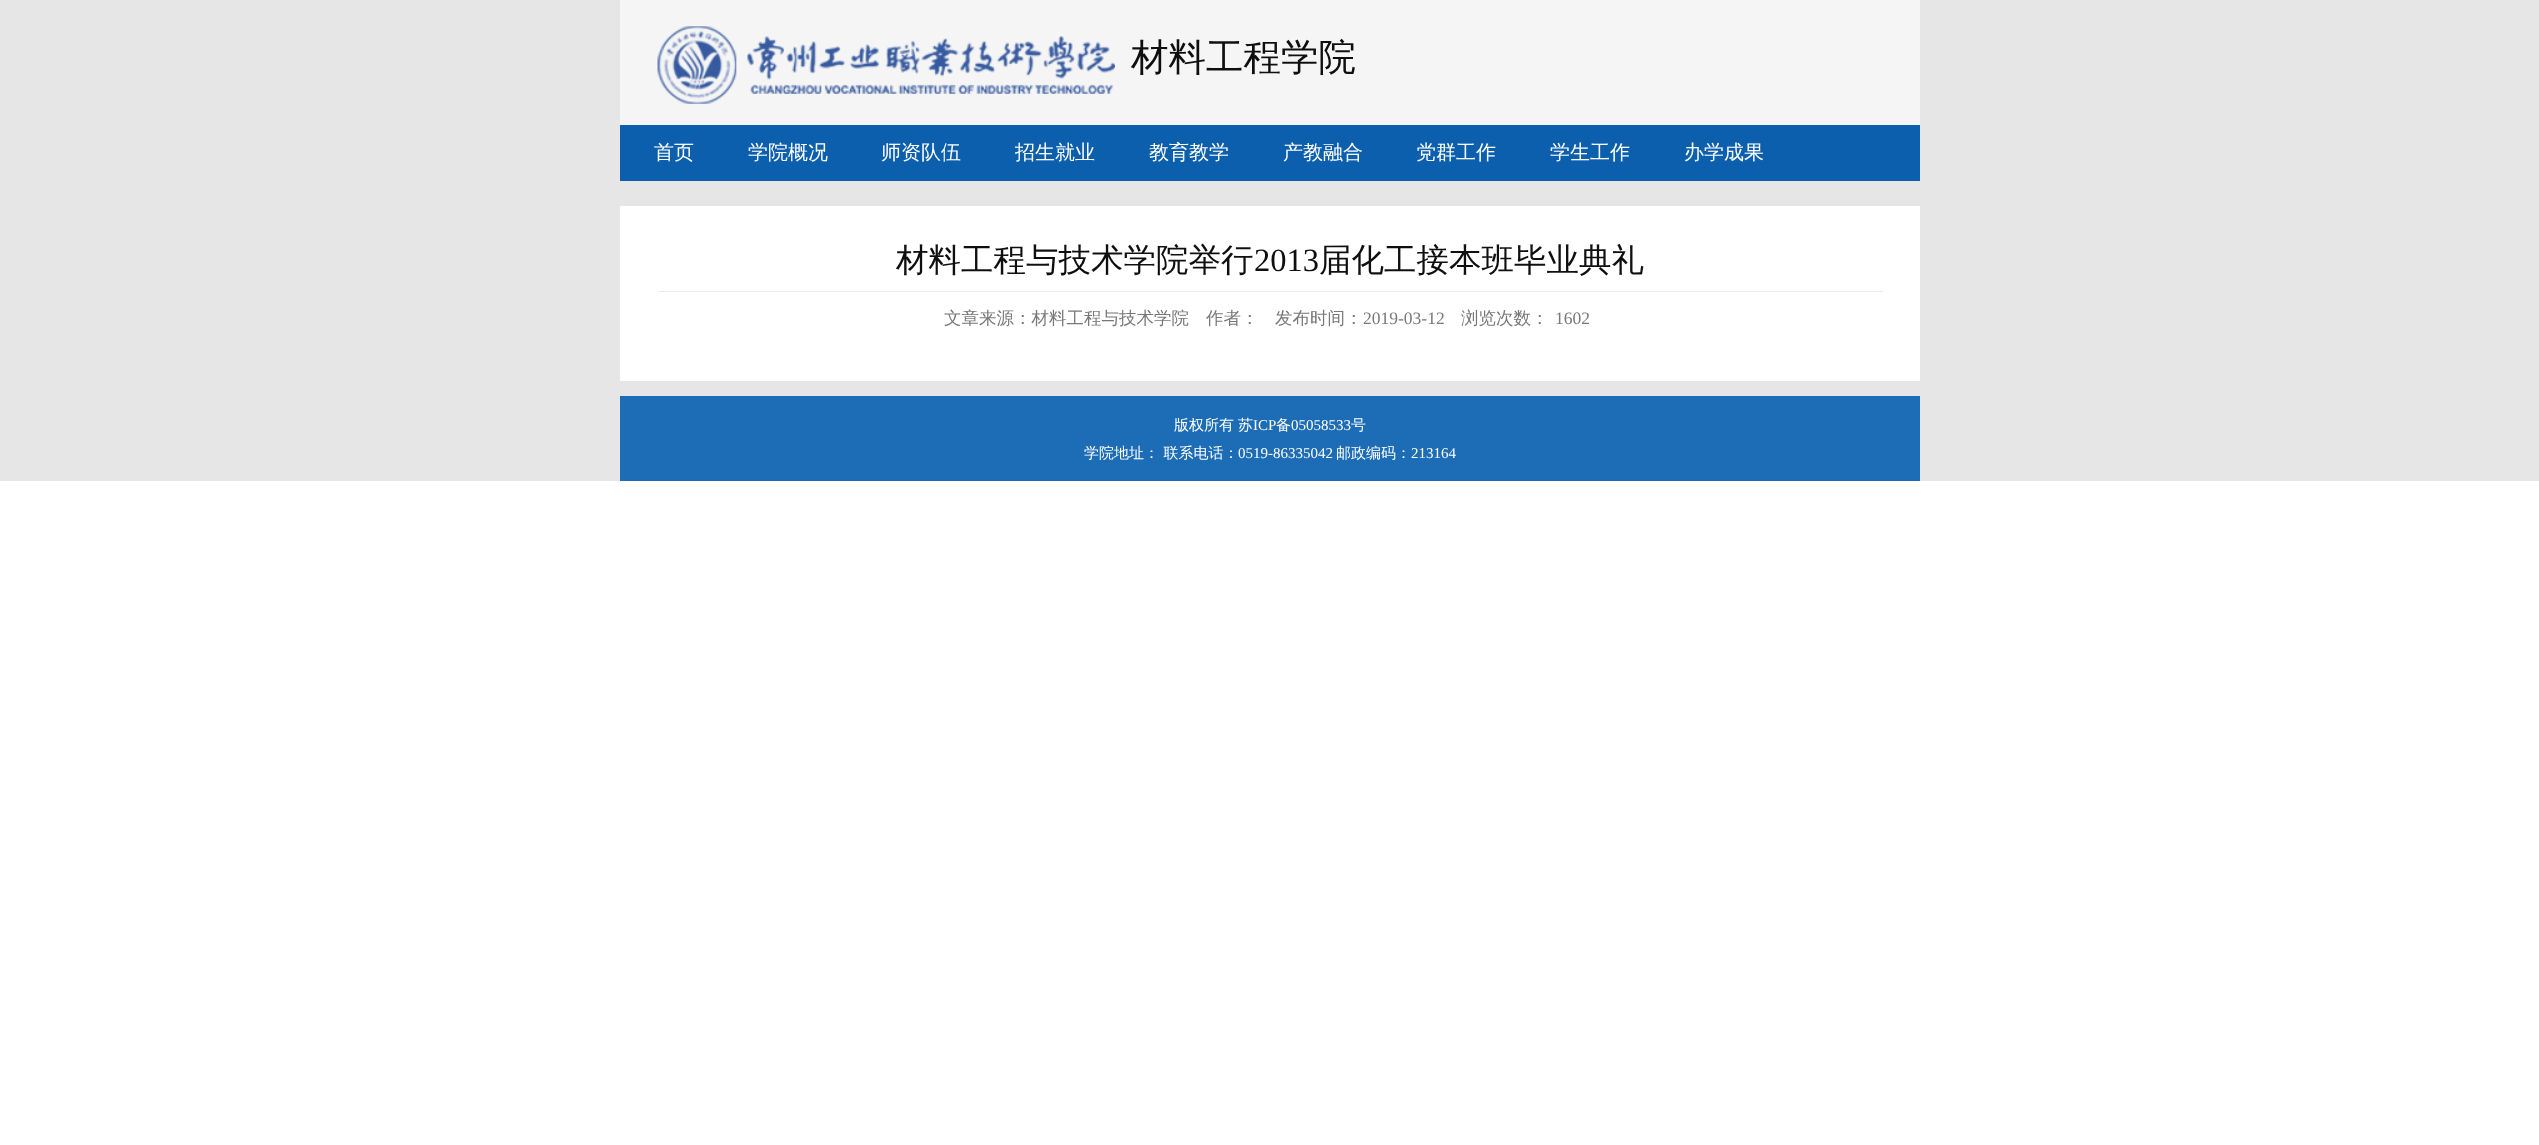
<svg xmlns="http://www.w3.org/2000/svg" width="2539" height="1145">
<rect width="100%" height="100%" fill="#fff"/>
<rect width="2539" height="481" fill="#e6e6e6"/>
<rect x="620" width="1300" height="125" fill="#f5f5f5"/>
<image x="657" y="26" width="458" height="78" href="media/1.png"/>
<text x="1131" y="70" style="font-family:WenQuanYi Zen Hei;font-size:37.5px;font-weight:500;fill:#0f0f0f">材料工程学院</text>
<rect x="620" y="125" width="1300" height="56" fill="#0c5fad"/>
<text x="654" y="159" style="font-family:WenQuanYi Zen Hei;font-size:20px;font-weight:500;fill:#fff">首页</text>
<text x="748" y="159" style="font-family:WenQuanYi Zen Hei;font-size:20px;font-weight:500;fill:#fff">学院概况</text>
<text x="881" y="159" style="font-family:WenQuanYi Zen Hei;font-size:20px;font-weight:500;fill:#fff">师资队伍</text>
<text x="1015" y="159" style="font-family:WenQuanYi Zen Hei;font-size:20px;font-weight:500;fill:#fff">招生就业</text>
<text x="1149" y="159" style="font-family:WenQuanYi Zen Hei;font-size:20px;font-weight:500;fill:#fff">教育教学</text>
<text x="1283" y="159" style="font-family:WenQuanYi Zen Hei;font-size:20px;font-weight:500;fill:#fff">产教融合</text>
<text x="1416" y="159" style="font-family:WenQuanYi Zen Hei;font-size:20px;font-weight:500;fill:#fff">党群工作</text>
<text x="1550" y="159" style="font-family:WenQuanYi Zen Hei;font-size:20px;font-weight:500;fill:#fff">学生工作</text>
<text x="1684" y="159" style="font-family:WenQuanYi Zen Hei;font-size:20px;font-weight:500;fill:#fff">办学成果</text>
<rect x="620" y="206" width="1300" height="175" fill="#fff"/>
<text x="896" y="271" style="font-family:WenQuanYi Zen Hei;font-size:32.5px;font-weight:500;fill:#0f0f0f">材料工程与技术学院举行</text>
<text x="1254" y="271" style="font-family:Liberation Serif;font-size:32.5px;fill:#0f0f0f">2013</text>
<text x="1319" y="271" style="font-family:WenQuanYi Zen Hei;font-size:32.5px;font-weight:500;fill:#0f0f0f">届化工接本班毕业典礼</text>
<rect x="658" y="291" width="1225" height="1" fill="#ececec"/>
<text x="944" y="324" style="font-family:WenQuanYi Zen Hei;font-size:17.5px;font-weight:500;fill:#787878">文章来源：材料工程与技术学院</text>
<text x="1206" y="324" style="font-family:WenQuanYi Zen Hei;font-size:17.5px;font-weight:500;fill:#787878">作者：</text>
<text x="1275" y="324" style="font-family:WenQuanYi Zen Hei;font-size:17.5px;font-weight:500;fill:#787878">发布时间：</text>
<text x="1363" y="324" style="font-family:Liberation Serif;font-size:17.5px;fill:#787878">2019-03-12</text>
<text x="1461" y="324" style="font-family:WenQuanYi Zen Hei;font-size:17.5px;font-weight:500;fill:#787878">浏览次数：</text>
<text x="1555" y="324" style="font-family:Liberation Serif;font-size:17.5px;fill:#787878">1602</text>
<rect x="620" y="396" width="1300" height="85" fill="#1c6cb6"/>
<text x="1174" y="430" style="font-family:WenQuanYi Zen Hei;font-size:15px;font-weight:500;fill:#fff">版权所有</text>
<text x="1238" y="430" style="font-family:WenQuanYi Zen Hei;font-size:15px;font-weight:500;fill:#fff">苏</text>
<text x="1253" y="430" style="font-family:Liberation Serif;font-size:15px;fill:#fff">ICP</text>
<text x="1276" y="430" style="font-family:WenQuanYi Zen Hei;font-size:15px;font-weight:500;fill:#fff">备</text>
<text x="1291" y="430" style="font-family:Liberation Serif;font-size:15px;fill:#fff">05058533</text>
<text x="1351" y="430" style="font-family:WenQuanYi Zen Hei;font-size:15px;font-weight:500;fill:#fff">号</text>
<text x="1084" y="458" style="font-family:WenQuanYi Zen Hei;font-size:15px;font-weight:500;fill:#fff">学院地址： 联系电话：</text>
<text x="1238" y="458" style="font-family:Liberation Serif;font-size:15px;fill:#fff">0519-86335042</text>
<text x="1336" y="458" style="font-family:WenQuanYi Zen Hei;font-size:15px;font-weight:500;fill:#fff">邮政编码：</text>
<text x="1411" y="458" style="font-family:Liberation Serif;font-size:15px;fill:#fff">213164</text>
</svg>
